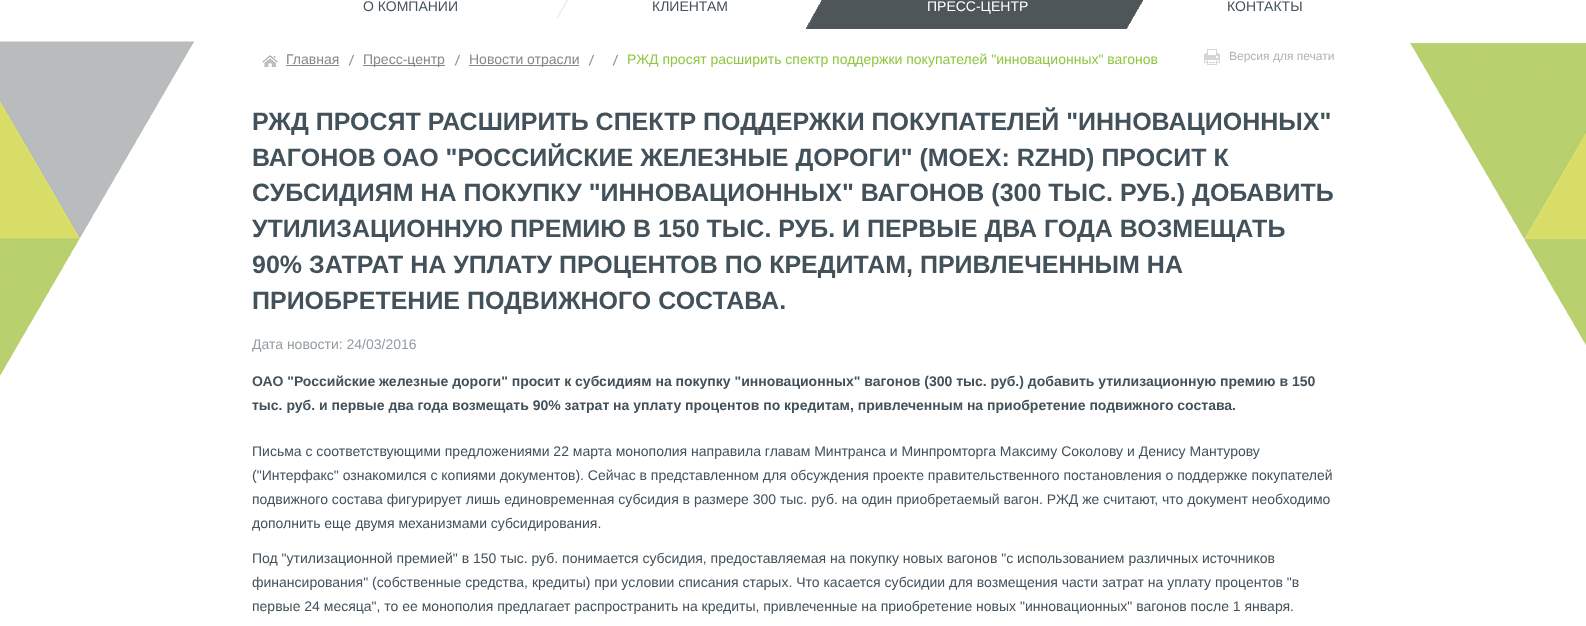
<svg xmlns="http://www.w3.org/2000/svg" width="1586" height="626">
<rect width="100%" height="100%" fill="#fff"/>
<image x="0" y="41" width="1586" height="335" href="media/1.png"/>
<text x="363" y="11" style="font-family:Liberation Sans;font-size:14px;fill:#42515a">О КОМПАНИИ</text>
<image x="556" y="0" width="12" height="18" href="media/2.png"/>
<text x="652" y="11" style="font-family:Liberation Sans;font-size:14px;fill:#42515a">КЛИЕНТАМ</text>
<image x="811" y="0" width="12" height="18" href="media/2.png"/>
<image x="806" y="0" width="319" height="29" href="media/3.png"/>
<text x="927" y="11" style="font-family:Liberation Sans;font-size:14px;fill:#fff">ПРЕСС-ЦЕНТР</text>
<image x="1133" y="0" width="10" height="17" href="media/5.png"/>
<image x="1125" y="0" width="18" height="29" href="media/4.png"/>
<text x="1227" y="11" style="font-family:Liberation Sans;font-size:14px;fill:#42515a">КОНТАКТЫ</text>
<image x="262" y="55" width="16" height="12" href="media/6.png"/>
<text x="286" y="64" style="font-family:Liberation Sans;font-size:14px;fill:#878787">Главная</text>
<rect x="286" y="65" width="53" height="1" fill="#878787"/>
<image x="348" y="54" width="6" height="12" href="media/7.png"/>
<rect x="363" y="65" width="82" height="1" fill="#878787"/>
<text x="363" y="64" style="font-family:Liberation Sans;font-size:14px;fill:#878787">Пресс-центр</text>
<image x="454" y="54" width="6" height="12" href="media/7.png"/>
<rect x="469" y="65" width="110" height="1" fill="#878787"/>
<text x="469" y="64" style="font-family:Liberation Sans;font-size:14px;fill:#878787">Новости отрасли</text>
<image x="588" y="54" width="6" height="12" href="media/7.png"/>
<image x="612" y="54" width="6" height="12" href="media/7.png"/>
<text x="627" y="64" style="font-family:Liberation Sans;font-size:14px;fill:#8dc63f">РЖД просят расширить спектр поддержки покупателей "инновационных" вагонов</text>
<image x="1204" y="49" width="16" height="16" href="media/8.png"/>
<text x="1229" y="60" style="font-family:Liberation Sans;font-size:12px;fill:#b3b3b3">Версия для печати</text>
<text x="252" y="130" style="font-family:Liberation Sans;font-size:25px;font-weight:bold;fill:#42515a">РЖД ПРОСЯТ РАСШИРИТЬ СПЕКТР ПОДДЕРЖКИ ПОКУПАТЕЛЕЙ "ИННОВАЦИОННЫХ"</text>
<text x="252" y="166" style="font-family:Liberation Sans;font-size:25px;font-weight:bold;fill:#42515a">ВАГОНОВ ОАО "РОССИЙСКИЕ ЖЕЛЕЗНЫЕ ДОРОГИ" (MOEX: RZHD) ПРОСИТ К</text>
<text x="252" y="201" style="font-family:Liberation Sans;font-size:25px;font-weight:bold;fill:#42515a">СУБСИДИЯМ НА ПОКУПКУ "ИННОВАЦИОННЫХ" ВАГОНОВ (300 ТЫС. РУБ.) ДОБАВИТЬ</text>
<text x="252" y="237" style="font-family:Liberation Sans;font-size:25px;font-weight:bold;fill:#42515a">УТИЛИЗАЦИОННУЮ ПРЕМИЮ В 150 ТЫС. РУБ. И ПЕРВЫЕ ДВА ГОДА ВОЗМЕЩАТЬ</text>
<text x="252" y="273" style="font-family:Liberation Sans;font-size:25px;font-weight:bold;fill:#42515a">90% ЗАТРАТ НА УПЛАТУ ПРОЦЕНТОВ ПО КРЕДИТАМ, ПРИВЛЕЧЕННЫМ НА</text>
<text x="252" y="309" style="font-family:Liberation Sans;font-size:25px;font-weight:bold;fill:#42515a">ПРИОБРЕТЕНИЕ ПОДВИЖНОГО СОСТАВА.</text>
<text x="252" y="349" style="font-family:Liberation Sans;font-size:14px;fill:#959ca1">Дата новости: 24/03/2016</text>
<text x="252" y="386" style="font-family:Liberation Sans;font-size:14px;font-weight:bold;fill:#42515a">ОАО "Российские железные дороги" просит к субсидиям на покупку "инновационных" вагонов (300 тыс. руб.) добавить утилизационную премию в 150</text>
<text x="252" y="410" style="font-family:Liberation Sans;font-size:14px;font-weight:bold;fill:#42515a">тыс. руб. и первые два года возмещать 90% затрат на уплату процентов по кредитам, привлеченным на приобретение подвижного состава.</text>
<text x="252" y="456" style="font-family:Liberation Sans;font-size:14px;fill:#42515a">Письма с соответствующими предложениями 22 марта монополия направила главам Минтранса и Минпромторга Максиму Соколову и Денису Мантурову</text>
<text x="252" y="480" style="font-family:Liberation Sans;font-size:14px;fill:#42515a">("Интерфакс" ознакомился с копиями документов). Сейчас в представленном для обсуждения проекте правительственного постановления о поддержке покупателей</text>
<text x="252" y="504" style="font-family:Liberation Sans;font-size:14px;fill:#42515a">подвижного состава фигурирует лишь единовременная субсидия в размере 300 тыс. руб. на один приобретаемый вагон. РЖД же считают, что документ необходимо</text>
<text x="252" y="528" style="font-family:Liberation Sans;font-size:14px;fill:#42515a">дополнить еще двумя механизмами субсидирования.</text>
<text x="252" y="563" style="font-family:Liberation Sans;font-size:14px;fill:#42515a">Под "утилизационной премией" в 150 тыс. руб. понимается субсидия, предоставляемая на покупку новых вагонов "с использованием различных источников</text>
<text x="252" y="587" style="font-family:Liberation Sans;font-size:14px;fill:#42515a">финансирования" (собственные средства, кредиты) при условии списания старых. Что касается субсидии для возмещения части затрат на уплату процентов "в</text>
<text x="252" y="611" style="font-family:Liberation Sans;font-size:14px;fill:#42515a">первые 24 месяца", то ее монополия предлагает распространить на кредиты, привлеченные на приобретение новых "инновационных" вагонов после 1 января.</text>
</svg>
